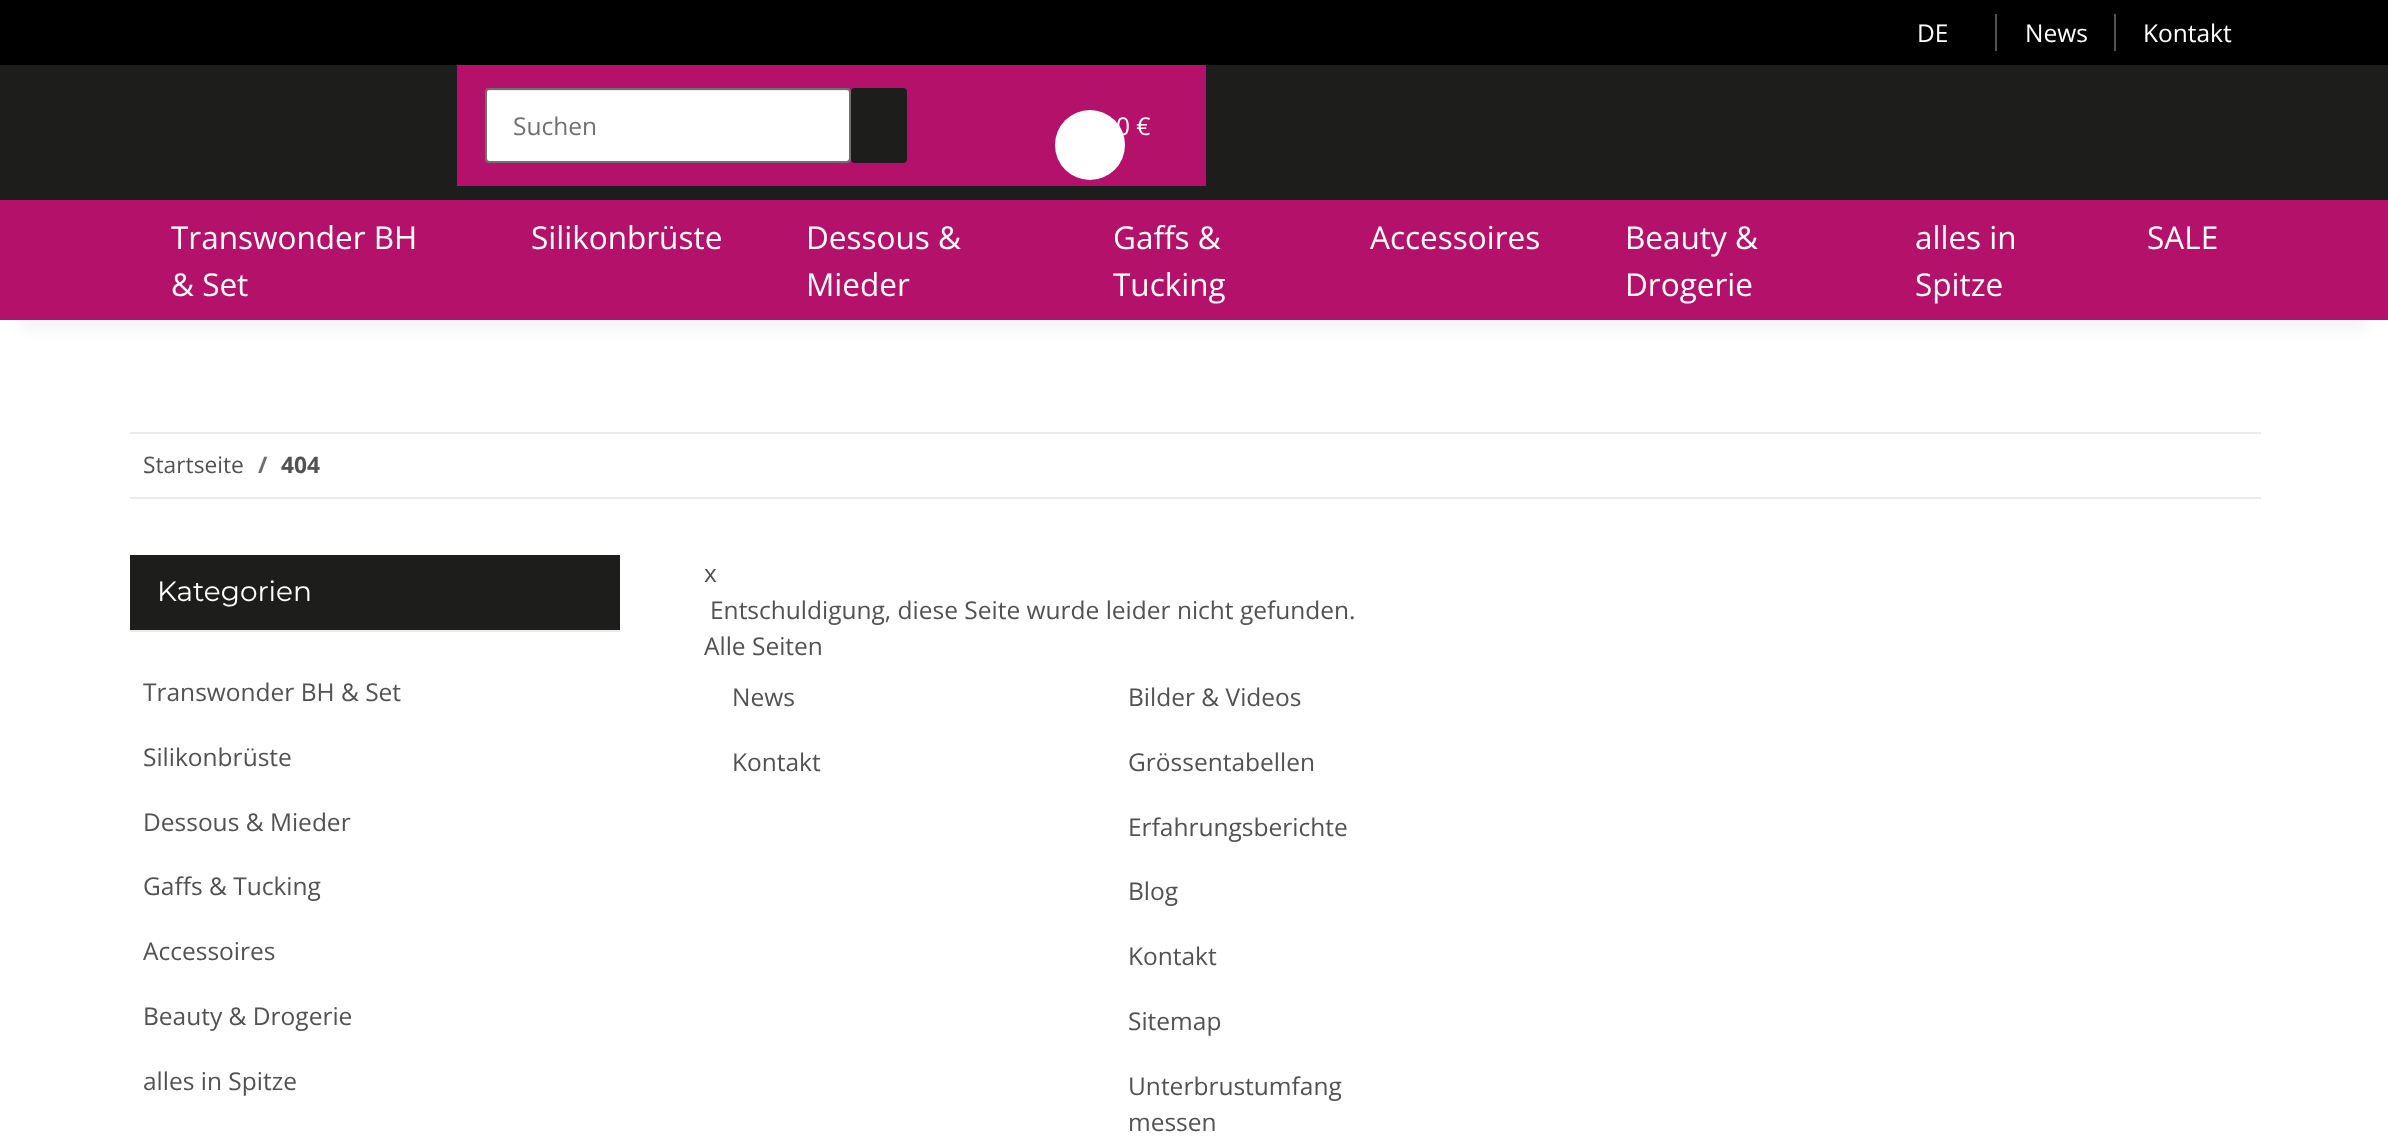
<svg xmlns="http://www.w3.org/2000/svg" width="2388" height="1136">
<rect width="100%" height="100%" fill="#fff"/>
<rect width="2388" height="65" fill="#000"/>
<text x="1917" y="42" style="font-family:Open Sans;font-size:24.5px;fill:#fff">DE</text>
<rect x="1995" y="14" width="2" height="37" fill="#525252"/>
<text x="2025" y="42" style="font-family:Open Sans;font-size:24.5px;fill:#fff">News</text>
<rect x="2114" y="14" width="2" height="37" fill="#525252"/>
<text x="2143" y="42" style="font-family:Open Sans;font-size:24.5px;fill:#fff">Kontakt</text>
<rect x="21" y="114" width="2347" height="213" fill="#0000000f" filter="blur(8px)"/>
<rect y="65" width="2388" height="135" fill="#1d1d1b"/>
<rect x="457" y="65" width="749" height="121" fill="#b4116a"/>
<rect x="487" y="89" width="362" height="72" rx="2" fill="#fff"/>
<path d="M488 91h359c1 0 2 1 2 2v-2c0-1-1-2-2-2h-358c-1 0-2 1-2 2z" fill="#00000012"/>
<rect x="486" y="89" width="364" height="73" rx="3" fill="none" stroke="#707070" stroke-width="2"/>
<text x="513" y="135" style="font-family:Open Sans;font-size:24.5px;fill:#707070">Suchen</text>
<rect x="851" y="88" width="56" height="75" rx="4" fill="#1d1d1b"/>
<circle cx="1090" cy="145" r="35" fill="#fff"/>
<text x="1116" y="135" style="font-family:Open Sans;font-size:24.5px;fill:#fff">0 €</text>
<rect y="200" width="2388" height="120" fill="#b4116a"/>
<text x="171" y="249" style="font-family:Open Sans;font-size:31.5px;fill:#fff">Transwonder BH</text>
<text x="171" y="296" style="font-family:Open Sans;font-size:31.5px;fill:#fff">&amp; Set</text>
<text x="531" y="249" style="font-family:Open Sans;font-size:31.5px;fill:#fff">Silikonbrüste</text>
<text x="806" y="249" style="font-family:Open Sans;font-size:31.5px;fill:#fff">Dessous &amp;</text>
<text x="806" y="296" style="font-family:Open Sans;font-size:31.5px;fill:#fff">Mieder</text>
<text x="1113" y="249" style="font-family:Open Sans;font-size:31.5px;fill:#fff">Gaffs &amp;</text>
<text x="1113" y="296" style="font-family:Open Sans;font-size:31.5px;fill:#fff">Tucking</text>
<text x="1370" y="249" style="font-family:Open Sans;font-size:31.5px;fill:#fff">Accessoires</text>
<text x="1625" y="249" style="font-family:Open Sans;font-size:31.5px;fill:#fff">Beauty &amp;</text>
<text x="1625" y="296" style="font-family:Open Sans;font-size:31.5px;fill:#fff">Drogerie</text>
<text x="1915" y="249" style="font-family:Open Sans;font-size:31.5px;fill:#fff">alles in</text>
<text x="1915" y="296" style="font-family:Open Sans;font-size:31.5px;fill:#fff">Spitze</text>
<text x="2147" y="249" style="font-family:Open Sans;font-size:31.5px;fill:#fff">SALE</text>
<rect x="130" y="432" width="2131" height="2" fill="#ebebeb"/>
<rect x="130" y="497" width="2131" height="2" fill="#ebebeb"/>
<text x="143" y="473" style="font-family:Open Sans;font-size:22.75px;fill:#525252">Startseite</text>
<text x="258" y="473" style="font-family:Open Sans;font-size:22.75px;font-weight:bold;fill:#707070">/</text>
<text x="281" y="473" style="font-family:Open Sans;font-size:22.75px;font-weight:bold;fill:#525252">404</text>
<rect x="130" y="555" width="490" height="75" fill="#1d1d1b"/>
<rect x="130" y="630" width="490" height="2" fill="#ebebeb"/>
<text x="157" y="601" style="font-family:Montserrat;font-size:28px;fill:#fff">Kategorien</text>
<text x="143" y="701" style="font-family:Open Sans;font-size:24.5px;fill:#525252">Transwonder BH &amp; Set</text>
<text x="143" y="766" style="font-family:Open Sans;font-size:24.5px;fill:#525252">Silikonbrüste</text>
<text x="143" y="831" style="font-family:Open Sans;font-size:24.5px;fill:#525252">Dessous &amp; Mieder</text>
<text x="143" y="895" style="font-family:Open Sans;font-size:24.5px;fill:#525252">Gaffs &amp; Tucking</text>
<text x="143" y="960" style="font-family:Open Sans;font-size:24.5px;fill:#525252">Accessoires</text>
<text x="143" y="1025" style="font-family:Open Sans;font-size:24.5px;fill:#525252">Beauty &amp; Drogerie</text>
<text x="143" y="1090" style="font-family:Open Sans;font-size:24.5px;fill:#525252">alles in Spitze</text>
<text x="704" y="582" style="font-family:Open Sans;font-size:24.5px;fill:#525252">x</text>
<text x="710" y="619" style="font-family:Open Sans;font-size:24.5px;fill:#525252">Entschuldigung, diese Seite wurde leider nicht gefunden.</text>
<text x="704" y="655" style="font-family:Open Sans;font-size:24.5px;fill:#525252">Alle Seiten</text>
<text x="732" y="706" style="font-family:Open Sans;font-size:24.5px;fill:#525252">News</text>
<text x="732" y="771" style="font-family:Open Sans;font-size:24.5px;fill:#525252">Kontakt</text>
<text x="1128" y="706" style="font-family:Open Sans;font-size:24.5px;fill:#525252">Bilder &amp; Videos</text>
<text x="1128" y="771" style="font-family:Open Sans;font-size:24.5px;fill:#525252">Grössentabellen</text>
<text x="1128" y="836" style="font-family:Open Sans;font-size:24.5px;fill:#525252">Erfahrungsberichte</text>
<text x="1128" y="900" style="font-family:Open Sans;font-size:24.5px;fill:#525252">Blog</text>
<text x="1128" y="965" style="font-family:Open Sans;font-size:24.5px;fill:#525252">Kontakt</text>
<text x="1128" y="1030" style="font-family:Open Sans;font-size:24.5px;fill:#525252">Sitemap</text>
<text x="1128" y="1095" style="font-family:Open Sans;font-size:24.5px;fill:#525252">Unterbrustumfang</text>
<text x="1128" y="1131" style="font-family:Open Sans;font-size:24.5px;fill:#525252">messen</text>
</svg>
